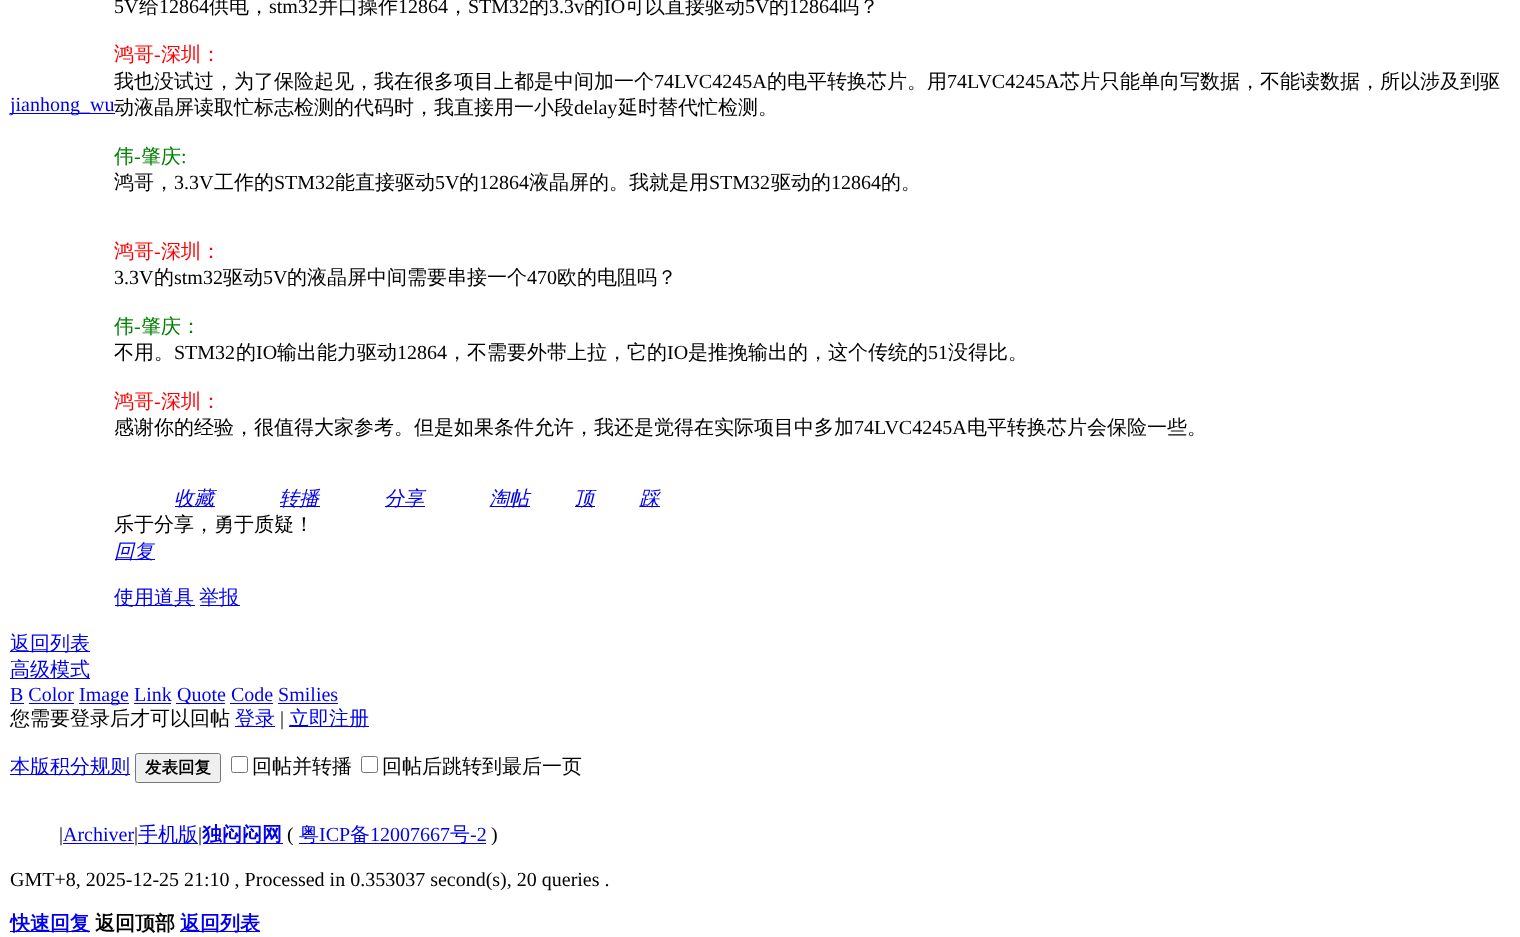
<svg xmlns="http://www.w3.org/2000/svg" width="1520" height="937">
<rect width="100%" height="100%" fill="#fff"/>
<rect x="10" y="113" width="105" height="1" fill="#00e"/>
<text x="10" y="111" style="font-family:Liberation Serif;font-size:20px;fill:#00e">jianhong_wu</text>
<text x="114" y="13" style="font-family:Liberation Serif;font-size:20px;fill:#000">5V</text>
<text x="139" y="13" style="font-family:WenQuanYi Zen Hei;font-size:20px;font-weight:500;fill:#000">给</text>
<text x="159" y="13" style="font-family:Liberation Serif;font-size:20px;fill:#000">12864</text>
<text x="209" y="13" style="font-family:WenQuanYi Zen Hei;font-size:20px;font-weight:500;fill:#000">供电，</text>
<text x="269" y="13" style="font-family:Liberation Serif;font-size:20px;fill:#000">stm32</text>
<text x="318" y="13" style="font-family:WenQuanYi Zen Hei;font-size:20px;font-weight:500;fill:#000">并口操作</text>
<text x="398" y="13" style="font-family:Liberation Serif;font-size:20px;fill:#000">12864</text>
<text x="448" y="13" style="font-family:WenQuanYi Zen Hei;font-size:20px;font-weight:500;fill:#000">，</text>
<text x="468" y="13" style="font-family:Liberation Serif;font-size:20px;fill:#000">STM32</text>
<text x="529" y="13" style="font-family:WenQuanYi Zen Hei;font-size:20px;font-weight:500;fill:#000">的</text>
<text x="549" y="13" style="font-family:Liberation Serif;font-size:20px;fill:#000">3.3v</text>
<text x="584" y="13" style="font-family:WenQuanYi Zen Hei;font-size:20px;font-weight:500;fill:#000">的</text>
<text x="604" y="13" style="font-family:Liberation Serif;font-size:20px;fill:#000">IO</text>
<text x="625" y="13" style="font-family:WenQuanYi Zen Hei;font-size:20px;font-weight:500;fill:#000">可以直接驱动</text>
<text x="745" y="13" style="font-family:Liberation Serif;font-size:20px;fill:#000">5V</text>
<text x="769" y="13" style="font-family:WenQuanYi Zen Hei;font-size:20px;font-weight:500;fill:#000">的</text>
<text x="789" y="13" style="font-family:Liberation Serif;font-size:20px;fill:#000">12864</text>
<text x="839" y="13" style="font-family:WenQuanYi Zen Hei;font-size:20px;font-weight:500;fill:#000">吗？</text>
<text x="114" y="61" style="font-family:WenQuanYi Zen Hei;font-size:20px;font-weight:500;fill:#f00">鸿哥</text>
<text x="154" y="61" style="font-family:Liberation Serif;font-size:20px;fill:#f00">-</text>
<text x="161" y="61" style="font-family:WenQuanYi Zen Hei;font-size:20px;font-weight:500;fill:#f00">深圳：</text>
<text x="114" y="88" style="font-family:WenQuanYi Zen Hei;font-size:20px;font-weight:500;fill:#000">我也没试过，为了保险起见，我在很多项目上都是中间加一个</text>
<text x="654" y="88" style="font-family:Liberation Serif;font-size:20px;fill:#000">74LVC4245A</text>
<text x="767" y="88" style="font-family:WenQuanYi Zen Hei;font-size:20px;font-weight:500;fill:#000">的电平转换芯片。用</text>
<text x="947" y="88" style="font-family:Liberation Serif;font-size:20px;fill:#000">74LVC4245A</text>
<text x="1060" y="88" style="font-family:WenQuanYi Zen Hei;font-size:20px;font-weight:500;fill:#000">芯片只能单向写数据，不能读数据，所以涉及到驱</text>
<text x="114" y="114" style="font-family:WenQuanYi Zen Hei;font-size:20px;font-weight:500;fill:#000">动液晶屏读取忙标志检测的代码时，我直接用一小段</text>
<text x="574" y="114" style="font-family:Liberation Serif;font-size:20px;fill:#000">delay</text>
<text x="618" y="114" style="font-family:WenQuanYi Zen Hei;font-size:20px;font-weight:500;fill:#000">延时替代忙检测。</text>
<text x="114" y="163" style="font-family:WenQuanYi Zen Hei;font-size:20px;font-weight:500;fill:#008000">伟</text>
<text x="134" y="163" style="font-family:Liberation Serif;font-size:20px;fill:#008000">-</text>
<text x="141" y="163" style="font-family:WenQuanYi Zen Hei;font-size:20px;font-weight:500;fill:#008000">肇庆</text>
<text x="181" y="163" style="font-family:Liberation Serif;font-size:20px;fill:#008000">:</text>
<text x="114" y="189" style="font-family:WenQuanYi Zen Hei;font-size:20px;font-weight:500;fill:#000">鸿哥，</text>
<text x="174" y="189" style="font-family:Liberation Serif;font-size:20px;fill:#000">3.3V</text>
<text x="214" y="189" style="font-family:WenQuanYi Zen Hei;font-size:20px;font-weight:500;fill:#000">工作的</text>
<text x="274" y="189" style="font-family:Liberation Serif;font-size:20px;fill:#000">STM32</text>
<text x="335" y="189" style="font-family:WenQuanYi Zen Hei;font-size:20px;font-weight:500;fill:#000">能直接驱动</text>
<text x="435" y="189" style="font-family:Liberation Serif;font-size:20px;fill:#000">5V</text>
<text x="459" y="189" style="font-family:WenQuanYi Zen Hei;font-size:20px;font-weight:500;fill:#000">的</text>
<text x="479" y="189" style="font-family:Liberation Serif;font-size:20px;fill:#000">12864</text>
<text x="529" y="189" style="font-family:WenQuanYi Zen Hei;font-size:20px;font-weight:500;fill:#000">液晶屏的。我就是用</text>
<text x="709" y="189" style="font-family:Liberation Serif;font-size:20px;fill:#000">STM32</text>
<text x="771" y="189" style="font-family:WenQuanYi Zen Hei;font-size:20px;font-weight:500;fill:#000">驱动的</text>
<text x="831" y="189" style="font-family:Liberation Serif;font-size:20px;fill:#000">12864</text>
<text x="881" y="189" style="font-family:WenQuanYi Zen Hei;font-size:20px;font-weight:500;fill:#000">的。</text>
<text x="114" y="258" style="font-family:WenQuanYi Zen Hei;font-size:20px;font-weight:500;fill:#f00">鸿哥</text>
<text x="154" y="258" style="font-family:Liberation Serif;font-size:20px;fill:#f00">-</text>
<text x="161" y="258" style="font-family:WenQuanYi Zen Hei;font-size:20px;font-weight:500;fill:#f00">深圳：</text>
<text x="114" y="284" style="font-family:Liberation Serif;font-size:20px;fill:#000">3.3V</text>
<text x="154" y="284" style="font-family:WenQuanYi Zen Hei;font-size:20px;font-weight:500;fill:#000">的</text>
<text x="174" y="284" style="font-family:Liberation Serif;font-size:20px;fill:#000">stm32</text>
<text x="223" y="284" style="font-family:WenQuanYi Zen Hei;font-size:20px;font-weight:500;fill:#000">驱动</text>
<text x="263" y="284" style="font-family:Liberation Serif;font-size:20px;fill:#000">5V</text>
<text x="287" y="284" style="font-family:WenQuanYi Zen Hei;font-size:20px;font-weight:500;fill:#000">的液晶屏中间需要串接一个</text>
<text x="527" y="284" style="font-family:Liberation Serif;font-size:20px;fill:#000">470</text>
<text x="557" y="284" style="font-family:WenQuanYi Zen Hei;font-size:20px;font-weight:500;fill:#000">欧的电阻吗？</text>
<text x="114" y="333" style="font-family:WenQuanYi Zen Hei;font-size:20px;font-weight:500;fill:#008000">伟</text>
<text x="134" y="333" style="font-family:Liberation Serif;font-size:20px;fill:#008000">-</text>
<text x="141" y="333" style="font-family:WenQuanYi Zen Hei;font-size:20px;font-weight:500;fill:#008000">肇庆：</text>
<text x="114" y="359" style="font-family:WenQuanYi Zen Hei;font-size:20px;font-weight:500;fill:#000">不用。</text>
<text x="174" y="359" style="font-family:Liberation Serif;font-size:20px;fill:#000">STM32</text>
<text x="236" y="359" style="font-family:WenQuanYi Zen Hei;font-size:20px;font-weight:500;fill:#000">的</text>
<text x="256" y="359" style="font-family:Liberation Serif;font-size:20px;fill:#000">IO</text>
<text x="277" y="359" style="font-family:WenQuanYi Zen Hei;font-size:20px;font-weight:500;fill:#000">输出能力驱动</text>
<text x="397" y="359" style="font-family:Liberation Serif;font-size:20px;fill:#000">12864</text>
<text x="447" y="359" style="font-family:WenQuanYi Zen Hei;font-size:20px;font-weight:500;fill:#000">，不需要外带上拉，它的</text>
<text x="667" y="359" style="font-family:Liberation Serif;font-size:20px;fill:#000">IO</text>
<text x="688" y="359" style="font-family:WenQuanYi Zen Hei;font-size:20px;font-weight:500;fill:#000">是推挽输出的，这个传统的</text>
<text x="928" y="359" style="font-family:Liberation Serif;font-size:20px;fill:#000">51</text>
<text x="948" y="359" style="font-family:WenQuanYi Zen Hei;font-size:20px;font-weight:500;fill:#000">没得比。</text>
<text x="114" y="408" style="font-family:WenQuanYi Zen Hei;font-size:20px;font-weight:500;fill:#f00">鸿哥</text>
<text x="154" y="408" style="font-family:Liberation Serif;font-size:20px;fill:#f00">-</text>
<text x="161" y="408" style="font-family:WenQuanYi Zen Hei;font-size:20px;font-weight:500;fill:#f00">深圳：</text>
<text x="114" y="434" style="font-family:WenQuanYi Zen Hei;font-size:20px;font-weight:500;fill:#000">感谢你的经验，很值得大家参考。但是如果条件允许，我还是觉得在实际项目中多加</text>
<text x="854" y="434" style="font-family:Liberation Serif;font-size:20px;fill:#000">74LVC4245A</text>
<text x="967" y="434" style="font-family:WenQuanYi Zen Hei;font-size:20px;font-weight:500;fill:#000">电平转换芯片会保险一些。</text>
<rect x="175" y="506" width="40" height="1" fill="#00e"/>
<text x="174" y="505" style="font-family:WenQuanYi Zen Hei;font-size:20px;font-weight:500;font-style:italic;fill:#00e">收藏</text>
<rect x="280" y="506" width="40" height="1" fill="#00e"/>
<text x="279" y="505" style="font-family:WenQuanYi Zen Hei;font-size:20px;font-weight:500;font-style:italic;fill:#00e">转播</text>
<rect x="385" y="506" width="40" height="1" fill="#00e"/>
<text x="384" y="505" style="font-family:WenQuanYi Zen Hei;font-size:20px;font-weight:500;font-style:italic;fill:#00e">分享</text>
<rect x="490" y="506" width="40" height="1" fill="#00e"/>
<text x="489" y="505" style="font-family:WenQuanYi Zen Hei;font-size:20px;font-weight:500;font-style:italic;fill:#00e">淘帖</text>
<rect x="575" y="506" width="20" height="1" fill="#00e"/>
<text x="574" y="505" style="font-family:WenQuanYi Zen Hei;font-size:20px;font-weight:500;font-style:italic;fill:#00e">顶</text>
<rect x="640" y="506" width="20" height="1" fill="#00e"/>
<text x="639" y="505" style="font-family:WenQuanYi Zen Hei;font-size:20px;font-weight:500;font-style:italic;fill:#00e">踩</text>
<text x="114" y="531" style="font-family:WenQuanYi Zen Hei;font-size:20px;font-weight:500;fill:#000">乐于分享，勇于质疑！</text>
<rect x="115" y="559" width="40" height="1" fill="#00e"/>
<text x="114" y="558" style="font-family:WenQuanYi Zen Hei;font-size:20px;font-weight:500;font-style:italic;fill:#00e">回复</text>
<rect x="115" y="605" width="80" height="1" fill="#00e"/>
<text x="114" y="604" style="font-family:WenQuanYi Zen Hei;font-size:20px;font-weight:500;fill:#00e">使用道具</text>
<rect x="200" y="605" width="40" height="1" fill="#00e"/>
<text x="199" y="604" style="font-family:WenQuanYi Zen Hei;font-size:20px;font-weight:500;fill:#00e">举报</text>
<rect x="10" y="651" width="80" height="1" fill="#00e"/>
<text x="10" y="650" style="font-family:WenQuanYi Zen Hei;font-size:20px;font-weight:500;fill:#00e">返回列表</text>
<rect x="10" y="678" width="80" height="1" fill="#00e"/>
<text x="10" y="676" style="font-family:WenQuanYi Zen Hei;font-size:20px;font-weight:500;fill:#00e">高级模式</text>
<text x="10" y="701" style="font-family:Liberation Serif;font-size:20px;fill:#00e">B Color</text>
<rect x="10" y="703" width="14" height="1" fill="#00e"/>
<rect x="79" y="703" width="50" height="1" fill="#00e"/>
<text x="79" y="701" style="font-family:Liberation Serif;font-size:20px;fill:#00e">Image Link</text>
<rect x="176" y="703" width="49" height="1" fill="#00e"/>
<text x="177" y="701" style="font-family:Liberation Serif;font-size:20px;fill:#00e">Quote Code Smilies</text>
<rect x="29" y="703" width="45" height="1" fill="#00e"/>
<rect x="134" y="703" width="37" height="1" fill="#00e"/>
<rect x="230" y="703" width="43" height="1" fill="#00e"/>
<rect x="278" y="703" width="60" height="1" fill="#00e"/>
<text x="10" y="725" style="font-family:WenQuanYi Zen Hei;font-size:20px;font-weight:500;fill:#000">您需要登录后才可以回帖</text>
<rect x="235" y="726" width="40" height="1" fill="#00e"/>
<text x="235" y="725" style="font-family:WenQuanYi Zen Hei;font-size:20px;font-weight:500;fill:#00e">登录</text>
<text x="280" y="725" style="font-family:Liberation Serif;font-size:20px;fill:#000">|</text>
<rect x="289" y="726" width="80" height="1" fill="#00e"/>
<text x="289" y="725" style="font-family:WenQuanYi Zen Hei;font-size:20px;font-weight:500;fill:#00e">立即注册</text>
<rect x="10" y="774" width="120" height="1" fill="#00e"/>
<text x="10" y="773" style="font-family:WenQuanYi Zen Hei;font-size:20px;font-weight:500;fill:#00e">本版积分规则</text>
<rect x="135.5" y="753.5" width="85" height="29" rx="2" fill="#efefef" stroke="#767676"/>
<text x="145" y="773" style="font-family:WenQuanYi Zen Hei;font-size:16.5px;font-weight:bold;fill:#000">发表回复</text>
<rect x="231.5" y="756.5" width="16" height="16" rx="2" fill="none" stroke="#767676"/>
<text x="252" y="773" style="font-family:WenQuanYi Zen Hei;font-size:20px;font-weight:500;fill:#000">回帖并转播</text>
<rect x="361.5" y="756.5" width="16" height="16" rx="2" fill="none" stroke="#767676"/>
<text x="382" y="773" style="font-family:WenQuanYi Zen Hei;font-size:20px;font-weight:500;fill:#000">回帖后跳转到最后一页</text>
<text x="59" y="841" style="font-family:Liberation Serif;font-size:20px;fill:#000">|</text>
<text x="63" y="841" style="font-family:Liberation Serif;font-size:20px;fill:#00e">Archiver</text>
<rect x="63" y="843" width="71" height="1" fill="#00e"/>
<text x="134" y="841" style="font-family:Liberation Serif;font-size:20px;fill:#000">|</text>
<rect x="138" y="843" width="60" height="1" fill="#00e"/>
<text x="138" y="841" style="font-family:WenQuanYi Zen Hei;font-size:20px;font-weight:500;fill:#00e">手机版</text>
<text x="198" y="841" style="font-family:Liberation Serif;font-size:20px;fill:#000">|</text>
<rect x="203" y="843" width="80" height="1" fill="#00e"/>
<text x="202" y="841" style="font-family:WenQuanYi Zen Hei;font-size:20px;font-weight:bold;fill:#00e">独闷闷网</text>
<text x="287" y="841" style="font-family:Liberation Serif;font-size:20px;fill:#000">(</text>
<rect x="299" y="843" width="187" height="1" fill="#00e"/>
<text x="299" y="841" style="font-family:WenQuanYi Zen Hei;font-size:20px;font-weight:500;fill:#00e">粤</text>
<text x="319" y="841" style="font-family:Liberation Serif;font-size:20px;fill:#00e">ICP</text>
<text x="350" y="841" style="font-family:WenQuanYi Zen Hei;font-size:20px;font-weight:500;fill:#00e">备</text>
<text x="370" y="841" style="font-family:Liberation Serif;font-size:20px;fill:#00e">12007667</text>
<text x="450" y="841" style="font-family:WenQuanYi Zen Hei;font-size:20px;font-weight:500;fill:#00e">号</text>
<text x="470" y="841" style="font-family:Liberation Serif;font-size:20px;fill:#00e">-2</text>
<text x="491" y="841" style="font-family:Liberation Serif;font-size:20px;fill:#000">)</text>
<text x="10" y="886" style="font-family:Liberation Serif;font-size:20px;fill:#000">GMT+8, 2025-12-25 21:10 , Processed in 0.353037 second(s), 20 queries .</text>
<rect x="10" y="931" width="80" height="1" fill="#00e"/>
<text x="10" y="930" style="font-family:WenQuanYi Zen Hei;font-size:20px;font-weight:bold;fill:#00e">快速回复</text>
<text x="95" y="930" style="font-family:WenQuanYi Zen Hei;font-size:20px;font-weight:bold;fill:#000">返回顶部</text>
<rect x="180" y="931" width="80" height="1" fill="#00e"/>
<text x="180" y="930" style="font-family:WenQuanYi Zen Hei;font-size:20px;font-weight:bold;fill:#00e">返回列表</text>
</svg>
